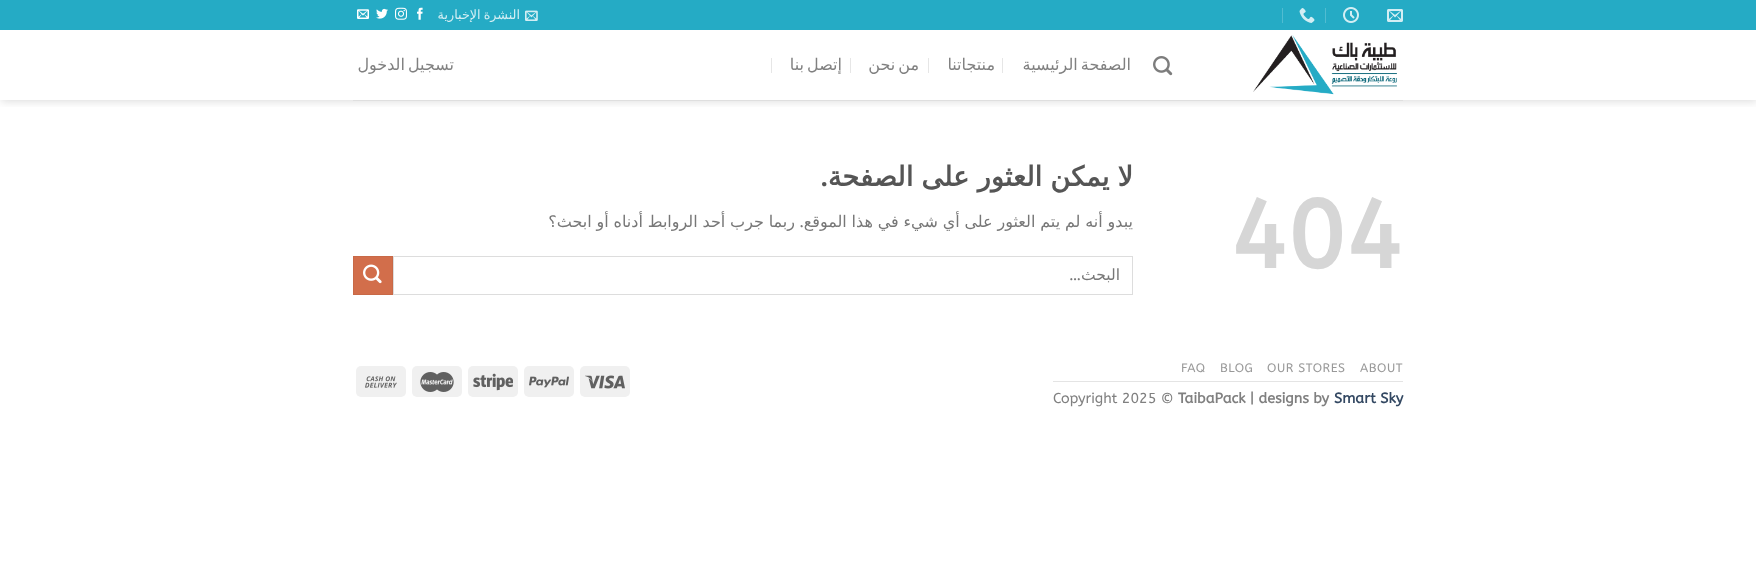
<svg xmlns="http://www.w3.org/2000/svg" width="1756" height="579">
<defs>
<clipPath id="clip1"><rect x="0" y="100" width="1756" height="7"/></clipPath>
</defs>
<rect width="100%" height="100%" fill="#fff"/>
<g clip-path="url(#clip1)">
<rect x="1" y="1" width="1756" height="100" fill="#00000026" filter="blur(5px)"/>
</g>
<rect width="1756" height="30" fill="#25abc5"/>
<image x="1387" y="9" width="16" height="13" href="media/1.png"/>
<image x="1343" y="7" width="16" height="16" href="media/2.png"/>
<rect x="1325" y="8" width="1" height="15" fill="#51bcd1"/>
<image x="1299" y="8" width="16" height="15" href="media/3.png"/>
<rect x="1282" y="8" width="1" height="15" fill="#51bcd1"/>
<image x="525" y="10" width="13" height="11" href="media/4.png"/>
<text x="520" y="19" word-spacing="-1" style="font-family:DejaVu Sans;font-size:12.75px;direction:rtl;fill:#d3eef3">النشرة الإخبارية</text>
<image x="417" y="7" width="6" height="13" href="media/5.png"/>
<image x="395" y="7" width="12" height="13" href="media/6.png"/>
<image x="376" y="8" width="12" height="11" href="media/7.png"/>
<image x="357" y="9" width="12" height="10" href="media/8.png"/>
<image x="1253" y="35" width="144" height="60" href="media/9.png"/>
<image x="1153" y="56" width="20" height="20" href="media/10.png"/>
<text x="1131" y="70" word-spacing="-2" style="font-family:DejaVu Sans;font-size:16px;letter-spacing:0.3px;direction:rtl;fill:#808080">الصفحة الرئيسية</text>
<rect x="1002" y="58" width="1" height="15" fill="#e6e6e6"/>
<text x="995" y="70" style="font-family:DejaVu Sans;font-size:16px;letter-spacing:0.3px;direction:rtl;fill:#808080">منتجاتنا</text>
<rect x="928" y="58" width="1" height="15" fill="#e6e6e6"/>
<text x="919" y="70" word-spacing="-2" style="font-family:DejaVu Sans;font-size:16px;letter-spacing:0.3px;direction:rtl;fill:#808080">من نحن</text>
<rect x="850" y="58" width="1" height="15" fill="#e6e6e6"/>
<text x="842" y="70" word-spacing="-2" style="font-family:DejaVu Sans;font-size:16px;letter-spacing:0.3px;direction:rtl;fill:#808080">إتصل بنا</text>
<rect x="771" y="58" width="1" height="15" fill="#e6e6e6"/>
<text x="454" y="70" word-spacing="-2" style="font-family:DejaVu Sans;font-size:16px;letter-spacing:0.3px;direction:rtl;fill:#808080">تسجيل الدخول</text>
<rect x="353" y="100" width="1050" height="1" fill="#dfdfdf"/>
<text x="1230" y="268" style="font-family:ABeeZee;font-size:96px;font-weight:bold;fill:#d6d6d6">404</text>
<text x="1133" y="186" word-spacing="-0.5" style="font-family:DejaVu Sans;font-size:27.25px;font-weight:bold;direction:rtl;fill:#555">لا يمكن العثور على الصفحة</text>
<text x="828" y="186" style="font-family:ABeeZee;font-size:27.25px;font-weight:bold;direction:rtl;fill:#555">.</text>
<text x="1133" y="227" word-spacing="-0.25" style="font-family:DejaVu Sans;font-size:16px;direction:rtl;fill:#777">يبدو أنه لم يتم العثور على أي شيء في هذا الموقع</text>
<text x="804" y="227" style="font-family:ABeeZee;font-size:16px;direction:rtl;fill:#777">.</text>
<text x="795" y="227" word-spacing="-0.25" style="font-family:DejaVu Sans;font-size:16px;direction:rtl;fill:#777">ربما جرب أحد الروابط أدناه أو ابحث؟</text>
<rect x="393.5" y="256.5" width="739" height="38" fill="none" stroke="#ddd"/>
<text x="1120" y="280" style="font-family:DejaVu Sans;font-size:15.5px;direction:rtl;fill:#777">البحث</text>
<text x="1081" y="280" style="font-family:ABeeZee;font-size:15.5px;direction:rtl;fill:#777">…</text>
<rect x="353.5" y="256.5" width="39" height="38" fill="#d26e4b" stroke="#c86947"/>
<image x="363" y="264" width="19" height="20" href="media/11.png"/>
<rect x="1053" y="381" width="350" height="1" fill="#e4e4e4"/>
<text x="1360" y="372" style="font-family:ABeeZee;font-size:12.25px;letter-spacing:0.6px;fill:#999">ABOUT</text>
<text x="1267" y="372" style="font-family:ABeeZee;font-size:12.25px;letter-spacing:0.6px;fill:#999">OUR STORES</text>
<text x="1220" y="372" style="font-family:ABeeZee;font-size:12.25px;letter-spacing:0.6px;fill:#999">BLOG</text>
<text x="1181" y="372" style="font-family:ABeeZee;font-size:12.25px;letter-spacing:0.6px;fill:#999">FAQ</text>
<text x="1334" y="403" style="font-family:ABeeZee;font-size:14.4px;font-weight:bold;fill:#334862">Smart Sky</text>
<text x="1178" y="403" style="font-family:ABeeZee;font-size:14.4px;font-weight:bold;fill:#808080">TaibaPack | designs by</text>
<text x="1053" y="403" style="font-family:ABeeZee;font-size:14.4px;fill:#808080">Copyright 2025 ©</text>
<rect x="580" y="366" width="50" height="31" rx="5" fill="#f0f0f0"/>
<image x="585" y="375" width="40" height="14" href="media/12.png"/>
<rect x="524" y="366" width="50" height="31" rx="5" fill="#f0f0f0"/>
<image x="529" y="376" width="40" height="12" href="media/13.png"/>
<rect x="468" y="366" width="50" height="31" rx="5" fill="#f0f0f0"/>
<image x="473" y="373" width="40" height="18" href="media/14.png"/>
<rect x="412" y="366" width="50" height="31" rx="5" fill="#f0f0f0"/>
<image x="420" y="372" width="34" height="20" href="media/15.png"/>
<rect x="356" y="366" width="50" height="31" rx="5" fill="#f0f0f0"/>
<image x="365" y="376" width="32" height="12" href="media/16.png"/>
</svg>
